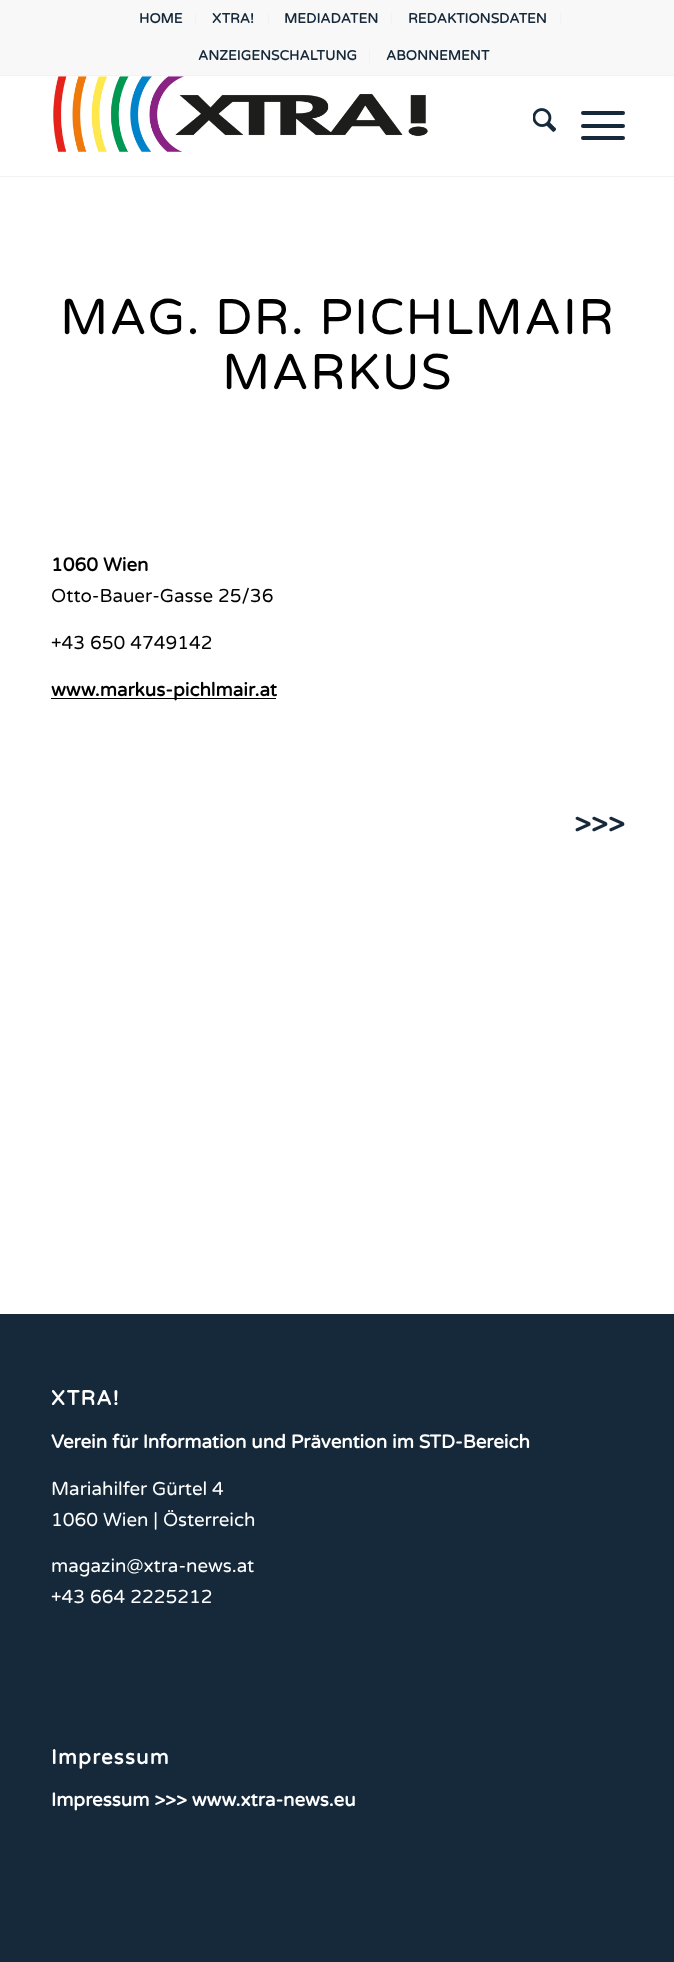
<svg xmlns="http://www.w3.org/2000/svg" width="674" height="1962">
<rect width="100%" height="100%" fill="#fff"/>
<rect width="674" height="75" fill="#f8f8f8"/>
<rect y="75" width="674" height="1" fill="#f2f2f2"/>
<rect x="195" y="13" width="1" height="12" fill="#f2f2f2"/>
<text x="139" y="23" style="font-family:Varela Round;font-size:13.75px;font-weight:bold;fill:#16293a">HOME</text>
<rect x="268" y="13" width="1" height="12" fill="#f2f2f2"/>
<text x="212" y="23" style="font-family:Varela Round;font-size:13.75px;font-weight:bold;fill:#16293a">XTRA!</text>
<rect x="391" y="13" width="1" height="12" fill="#f2f2f2"/>
<text x="284" y="23" style="font-family:Varela Round;font-size:13.75px;font-weight:bold;fill:#16293a">MEDIADATEN</text>
<rect x="560" y="13" width="1" height="12" fill="#f2f2f2"/>
<text x="408" y="23" style="font-family:Varela Round;font-size:13.75px;font-weight:bold;fill:#16293a">REDAKTIONSDATEN</text>
<rect x="369" y="50" width="1" height="13" fill="#f2f2f2"/>
<text x="198" y="60" style="font-family:Varela Round;font-size:13.75px;font-weight:bold;fill:#16293a">ANZEIGENSCHALTUNG</text>
<text x="386" y="60" style="font-family:Varela Round;font-size:13.75px;font-weight:bold;fill:#16293a">ABONNEMENT</text>
<rect y="176" width="674" height="1" fill="#f2f2f2"/>
<image x="53" y="76" width="375" height="76" href="media/1.png"/>
<image x="533" y="108" width="23" height="24" href="media/2.png"/>
<rect x="581" y="124" width="44" height="4" rx="2" fill="#16293a"/>
<rect x="581" y="111" width="44" height="4" rx="2" fill="#16293a"/>
<rect x="581" y="136" width="44" height="4" rx="2" fill="#16293a"/>
<text x="60" y="334" style="font-family:Varela Round;font-size:50px;letter-spacing:1.25px;fill:#000">MAG. DR. PICHLMAIR</text>
<text x="222" y="389" style="font-family:Varela Round;font-size:50px;letter-spacing:1.25px;fill:#000">MARKUS</text>
<text x="51" y="571" style="font-family:Varela Round;font-size:18.75px;font-weight:bold;fill:#000">1060 Wien</text>
<text x="51" y="602" style="font-family:Varela Round;font-size:18.75px;fill:#000">Otto-Bauer-Gasse 25/36</text>
<text x="51" y="649" style="font-family:Varela Round;font-size:18.75px;fill:#000">+43 650 4749142</text>
<rect x="51" y="698" width="225" height="1" fill="#000"/>
<text x="51" y="696" style="font-family:Varela Round;font-size:18.75px;font-weight:bold;fill:#000">www.markus-pichlmair.at</text>
<text x="574" y="833" style="font-family:Varela Round;font-size:29px;font-weight:bold;fill:#16293a">&gt;&gt;&gt;</text>
<rect y="1314" width="674" height="648" fill="#16293a"/>
<text x="51" y="1405" style="font-family:Varela Round;font-size:20.5px;font-weight:bold;letter-spacing:1.25px;fill:#fff">XTRA!</text>
<text x="51" y="1448" style="font-family:Varela Round;font-size:18.75px;font-weight:bold;fill:#fff">Verein für Information und Prävention im STD-Bereich</text>
<text x="51" y="1495" style="font-family:Varela Round;font-size:18.75px;fill:#fff">Mariahilfer Gürtel 4</text>
<text x="51" y="1526" style="font-family:Varela Round;font-size:18.75px;fill:#fff">1060 Wien | Österreich</text>
<text x="51" y="1572" style="font-family:Varela Round;font-size:18.75px;fill:#fff">magazin@xtra-news.at</text>
<text x="51" y="1603" style="font-family:Varela Round;font-size:18.75px;fill:#fff">+43 664 2225212</text>
<text x="51" y="1764" style="font-family:Varela Round;font-size:20.5px;font-weight:bold;letter-spacing:1.25px;fill:#fff">Impressum</text>
<text x="51" y="1806" style="font-family:Varela Round;font-size:18.75px;font-weight:bold;fill:#fff">Impressum &gt;&gt;&gt; www.xtra-news.eu</text>
</svg>
